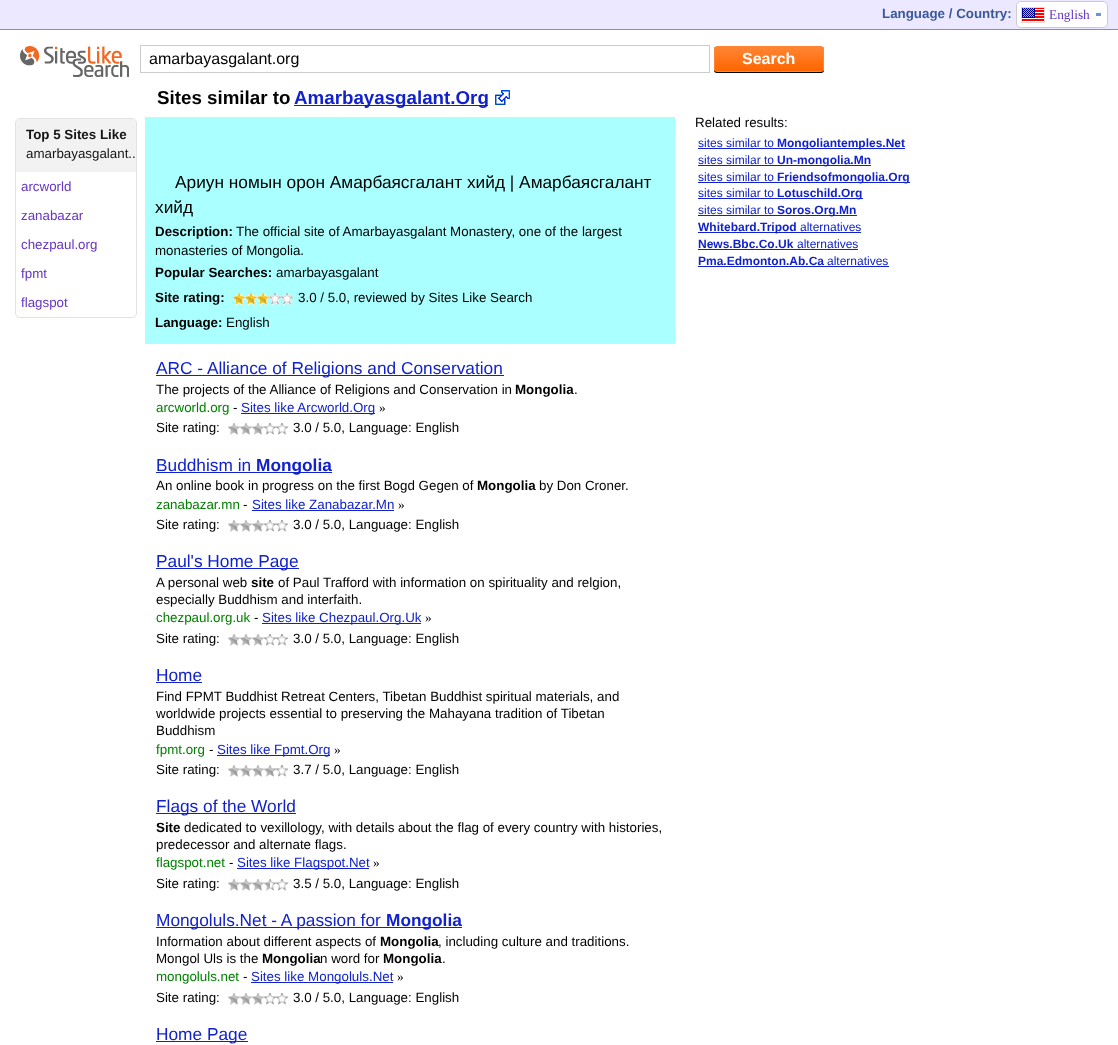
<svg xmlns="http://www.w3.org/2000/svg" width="1118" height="1045">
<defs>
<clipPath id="clip1"><rect x="714" y="46" width="110" height="26" rx="3"/></clipPath>
<linearGradient id="g1" gradientUnits="userSpaceOnUse" x1="715" y1="47" x2="715" y2="71"><stop offset="0" stop-color="#ff8533"/><stop offset="1" stop-color="#f60"/></linearGradient>
</defs>
<rect width="100%" height="100%" fill="#fff"/>
<rect width="1118" height="29" fill="#ebe8ff"/>
<rect y="29" width="1118" height="1" fill="#6a98cd"/>
<text x="882" y="18" style="font-family:Liberation Sans;font-size:13.35px;font-weight:bold;fill:#3b5998">Language / Country:</text>
<rect x="1016.5" y="1.5" width="91" height="26" rx="4.5" fill="#fff" stroke="#ccc"/>
<rect x="1017" y="2" width="90" height="25" rx="5" fill="#fff"/>
<image x="1022" y="8" width="22" height="14" href="media/1.png"/>
<rect x="1021.5" y="7.5" width="23" height="15" fill="none" stroke="#ddd"/>
<text x="1049" y="19" style="font-family:Liberation Serif;font-size:13.35px;fill:#6636c3">English</text>
<rect x="1096" y="13" width="5" height="3" fill="#6a98cd"/>
<image x="20" y="46" width="109" height="31" href="media/2.png"/>
<rect x="140.5" y="45.5" width="569" height="27" fill="none" stroke="#ccc"/>
<text x="149" y="64" style="font-family:Liberation Sans;font-size:16px;fill:#000">amarbayasgalant.org</text>
<rect x="714" y="47" width="110" height="26" rx="3" fill="#000" filter="blur(0.5px)"/>
<g clip-path="url(#clip1)">
<rect x="714" y="47" width="110" height="24" fill="url(#g1)"/>
</g>
<rect x="714.5" y="46.5" width="109" height="25" rx="2.5" fill="none" stroke="#ff8533"/>
<text x="742" y="64" style="font-family:Liberation Sans;font-size:16px;font-weight:bold;fill:#fff">Search</text>
<text x="157" y="104" style="font-family:Liberation Sans;font-size:18.75px;font-weight:bold;fill:#000">Sites similar to</text>
<rect x="294" y="105" width="194" height="1" fill="#12c"/>
<text x="294" y="104" style="font-family:Liberation Sans;font-size:18.75px;font-weight:bold;fill:#12c">Amarbayasgalant.Org</text>
<image x="495" y="90" width="15" height="15" href="media/3.png"/>
<rect x="15.5" y="118.5" width="121" height="199" rx="4.5" fill="none" stroke="#e2e2e2"/>
<path d="M20 119h112c2 0 4 2 4 4v49h-120v-49c0-2 2-4 4-4z" fill="#f2f2f2"/>
<text x="26" y="139" style="font-family:Liberation Sans;font-size:13.35px;font-weight:bold;fill:#151515">Top 5 Sites Like</text>
<text x="26" y="158" style="font-family:Liberation Sans;font-size:13.35px;fill:#151515">amarbayasgalant..</text>
<text x="21" y="191" style="font-family:Liberation Sans;font-size:13.35px;fill:#6636c3">arcworld</text>
<text x="21" y="220" style="font-family:Liberation Sans;font-size:13.35px;fill:#6636c3">zanabazar</text>
<text x="21" y="249" style="font-family:Liberation Sans;font-size:13.35px;fill:#6636c3">chezpaul.org</text>
<text x="21" y="278" style="font-family:Liberation Sans;font-size:13.35px;fill:#6636c3">fpmt</text>
<text x="21" y="307" style="font-family:Liberation Sans;font-size:13.35px;fill:#6636c3">flagspot</text>
<rect x="145" y="117" width="530" height="227" fill="#aff"/>
<text x="175" y="188" style="font-family:Liberation Sans;font-size:17.3px;fill:#000">Ариун номын орон Амарбаясгалант хийд | Амарбаясгалант</text>
<text x="155" y="213" style="font-family:Liberation Sans;font-size:17.3px;fill:#000">хийд</text>
<text x="155" y="236" style="font-family:Liberation Sans;font-size:13.35px;font-weight:bold;fill:#000">Description:</text>
<text x="236" y="236" style="font-family:Liberation Sans;font-size:13.35px;fill:#000">The official site of Amarbayasgalant Monastery, one of the largest</text>
<text x="155" y="255" style="font-family:Liberation Sans;font-size:13.35px;fill:#000">monasteries of Mongolia.</text>
<text x="155" y="277" style="font-family:Liberation Sans;font-size:13.35px;font-weight:bold;fill:#000">Popular Searches:</text>
<text x="276" y="277" style="font-family:Liberation Sans;font-size:13.35px;fill:#000">amarbayasgalant</text>
<text x="155" y="302" style="font-family:Liberation Sans;font-size:13.35px;font-weight:bold;fill:#000">Site rating:</text>
<image x="269" y="293" width="24" height="12" href="media/4.png"/>
<image x="233" y="293" width="36" height="12" href="media/5.png"/>
<text x="298" y="302" style="font-family:Liberation Sans;font-size:13.35px;fill:#000">3.0 / 5.0, reviewed by Sites Like Search</text>
<text x="155" y="327" style="font-family:Liberation Sans;font-size:13.35px;font-weight:bold;fill:#000">Language:</text>
<text x="226" y="327" style="font-family:Liberation Sans;font-size:13.35px;fill:#000">English</text>
<rect x="156" y="375" width="348" height="1" fill="#12c"/>
<text x="156" y="374" style="font-family:Liberation Sans;font-size:17.3px;fill:#12c">ARC - Alliance of Religions and Conservation</text>
<text x="156" y="394" style="font-family:Liberation Sans;font-size:13.35px;fill:#000">The projects of the Alliance of Religions and Conservation in</text>
<text x="515" y="394" style="font-family:Liberation Sans;font-size:13.35px;font-weight:bold;fill:#000">Mongolia</text>
<text x="574" y="394" style="font-family:Liberation Sans;font-size:13.35px;fill:#000">.</text>
<text x="156" y="412" style="font-family:Liberation Sans;font-size:13.35px;fill:#008000">arcworld.org</text>
<text x="233" y="412" style="font-family:Liberation Sans;font-size:13.35px;fill:#000">-</text>
<rect x="241" y="413" width="134" height="1" fill="#12c"/>
<text x="241" y="412" style="font-family:Liberation Sans;font-size:13.35px;fill:#12c">Sites like Arcworld.Org</text>
<text x="379" y="412" style="font-family:Liberation Serif;font-size:13.35px;fill:#000">»</text>
<text x="156" y="432" style="font-family:Liberation Sans;font-size:13.35px;fill:#000">Site rating:</text>
<image x="264" y="423" width="24" height="12" href="media/6.png"/>
<image x="228" y="423" width="36" height="12" href="media/7.png"/>
<text x="293" y="432" style="font-family:Liberation Sans;font-size:13.35px;fill:#000">3.0 / 5.0, Language: English</text>
<text x="156" y="471" style="font-family:Liberation Sans;font-size:17.3px;fill:#12c">Buddhism in</text>
<rect x="156" y="472" width="176" height="1" fill="#12c"/>
<text x="256" y="471" style="font-family:Liberation Sans;font-size:17.3px;font-weight:bold;fill:#12c">Mongolia</text>
<text x="156" y="490" style="font-family:Liberation Sans;font-size:13.35px;fill:#000">An online book in progress on the first Bogd Gegen of</text>
<text x="477" y="490" style="font-family:Liberation Sans;font-size:13.35px;font-weight:bold;fill:#000">Mongolia</text>
<text x="539" y="490" style="font-family:Liberation Sans;font-size:13.35px;fill:#000">by Don Croner.</text>
<text x="156" y="509" style="font-family:Liberation Sans;font-size:13.35px;fill:#008000">zanabazar.mn</text>
<text x="243" y="509" style="font-family:Liberation Sans;font-size:13.35px;fill:#000">-</text>
<text x="252" y="509" style="font-family:Liberation Sans;font-size:13.35px;fill:#12c">Sites like Zanabazar.Mn</text>
<rect x="252" y="510" width="142" height="1" fill="#12c"/>
<text x="398" y="509" style="font-family:Liberation Serif;font-size:13.35px;fill:#000">»</text>
<text x="156" y="529" style="font-family:Liberation Sans;font-size:13.35px;fill:#000">Site rating:</text>
<image x="264" y="520" width="24" height="12" href="media/6.png"/>
<image x="228" y="520" width="36" height="12" href="media/7.png"/>
<text x="293" y="529" style="font-family:Liberation Sans;font-size:13.35px;fill:#000">3.0 / 5.0, Language: English</text>
<rect x="156" y="568" width="143" height="1" fill="#12c"/>
<text x="156" y="567" style="font-family:Liberation Sans;font-size:17.3px;fill:#12c">Paul's Home Page</text>
<text x="156" y="587" style="font-family:Liberation Sans;font-size:13.35px;fill:#000">A personal web</text>
<text x="251" y="587" style="font-family:Liberation Sans;font-size:13.35px;font-weight:bold;fill:#000">site</text>
<text x="278" y="587" style="font-family:Liberation Sans;font-size:13.35px;fill:#000">of Paul Trafford with information on spirituality and relgion,</text>
<text x="156" y="604" style="font-family:Liberation Sans;font-size:13.35px;fill:#000">especially Buddhism and interfaith.</text>
<text x="156" y="622" style="font-family:Liberation Sans;font-size:13.35px;fill:#008000">chezpaul.org.uk</text>
<text x="254" y="622" style="font-family:Liberation Sans;font-size:13.35px;fill:#000">-</text>
<rect x="262" y="623" width="159" height="1" fill="#12c"/>
<text x="262" y="622" style="font-family:Liberation Sans;font-size:13.35px;fill:#12c">Sites like Chezpaul.Org.Uk</text>
<text x="425" y="622" style="font-family:Liberation Serif;font-size:13.35px;fill:#000">»</text>
<text x="156" y="643" style="font-family:Liberation Sans;font-size:13.35px;fill:#000">Site rating:</text>
<image x="264" y="634" width="24" height="12" href="media/6.png"/>
<image x="228" y="634" width="36" height="12" href="media/7.png"/>
<text x="293" y="643" style="font-family:Liberation Sans;font-size:13.35px;fill:#000">3.0 / 5.0, Language: English</text>
<text x="156" y="681" style="font-family:Liberation Sans;font-size:17.3px;fill:#12c">Home</text>
<rect x="156" y="682" width="46" height="1" fill="#12c"/>
<text x="156" y="701" style="font-family:Liberation Sans;font-size:13.35px;fill:#000">Find FPMT Buddhist Retreat Centers, Tibetan Buddhist spiritual materials, and</text>
<text x="156" y="718" style="font-family:Liberation Sans;font-size:13.35px;fill:#000">worldwide projects essential to preserving the Mahayana tradition of Tibetan</text>
<text x="156" y="735" style="font-family:Liberation Sans;font-size:13.35px;fill:#000">Buddhism</text>
<text x="156" y="754" style="font-family:Liberation Sans;font-size:13.35px;fill:#008000">fpmt.org</text>
<text x="209" y="754" style="font-family:Liberation Sans;font-size:13.35px;fill:#000">-</text>
<rect x="217" y="755" width="113" height="1" fill="#12c"/>
<text x="217" y="754" style="font-family:Liberation Sans;font-size:13.35px;fill:#12c">Sites like Fpmt.Org</text>
<text x="334" y="754" style="font-family:Liberation Serif;font-size:13.35px;fill:#000">»</text>
<text x="156" y="774" style="font-family:Liberation Sans;font-size:13.35px;fill:#000">Site rating:</text>
<image x="273" y="765" width="15" height="12" href="media/8.png"/>
<image x="228" y="765" width="45" height="12" href="media/9.png"/>
<text x="293" y="774" style="font-family:Liberation Sans;font-size:13.35px;fill:#000">3.7 / 5.0, Language: English</text>
<rect x="156" y="813" width="140" height="1" fill="#12c"/>
<text x="156" y="812" style="font-family:Liberation Sans;font-size:17.3px;fill:#12c">Flags of the World</text>
<text x="156" y="832" style="font-family:Liberation Sans;font-size:13.35px;font-weight:bold;fill:#000">Site</text>
<text x="184" y="832" style="font-family:Liberation Sans;font-size:13.35px;fill:#000">dedicated to vexillology, with details about the flag of every country with histories,</text>
<text x="156" y="849" style="font-family:Liberation Sans;font-size:13.35px;fill:#000">predecessor and alternate flags.</text>
<text x="156" y="867" style="font-family:Liberation Sans;font-size:13.35px;fill:#008000">flagspot.net</text>
<text x="229" y="867" style="font-family:Liberation Sans;font-size:13.35px;fill:#000">-</text>
<rect x="237" y="868" width="132" height="1" fill="#12c"/>
<text x="237" y="867" style="font-family:Liberation Sans;font-size:13.35px;fill:#12c">Sites like Flagspot.Net</text>
<text x="373" y="867" style="font-family:Liberation Serif;font-size:13.35px;fill:#000">»</text>
<text x="156" y="888" style="font-family:Liberation Sans;font-size:13.35px;fill:#000">Site rating:</text>
<image x="270" y="879" width="18" height="12" href="media/10.png"/>
<image x="228" y="879" width="42" height="12" href="media/11.png"/>
<text x="293" y="888" style="font-family:Liberation Sans;font-size:13.35px;fill:#000">3.5 / 5.0, Language: English</text>
<rect x="156" y="927" width="306" height="1" fill="#12c"/>
<text x="156" y="926" style="font-family:Liberation Sans;font-size:17.3px;fill:#12c">Mongoluls.Net - A passion for</text>
<text x="386" y="926" style="font-family:Liberation Sans;font-size:17.3px;font-weight:bold;fill:#12c">Mongolia</text>
<text x="156" y="946" style="font-family:Liberation Sans;font-size:13.35px;fill:#000">Information about different aspects of</text>
<text x="380" y="946" style="font-family:Liberation Sans;font-size:13.35px;font-weight:bold;fill:#000">Mongolia</text>
<text x="438" y="946" style="font-family:Liberation Sans;font-size:13.35px;fill:#000">, including culture and traditions.</text>
<text x="156" y="963" style="font-family:Liberation Sans;font-size:13.35px;fill:#000">Mongol Uls is the</text>
<text x="262" y="963" style="font-family:Liberation Sans;font-size:13.35px;font-weight:bold;fill:#000">Mongolia</text>
<text x="320" y="963" style="font-family:Liberation Sans;font-size:13.35px;fill:#000">n word for</text>
<text x="383" y="963" style="font-family:Liberation Sans;font-size:13.35px;font-weight:bold;fill:#000">Mongolia</text>
<text x="442" y="963" style="font-family:Liberation Sans;font-size:13.35px;fill:#000">.</text>
<text x="156" y="981" style="font-family:Liberation Sans;font-size:13.35px;fill:#008000">mongoluls.net</text>
<text x="243" y="981" style="font-family:Liberation Sans;font-size:13.35px;fill:#000">-</text>
<rect x="251" y="982" width="142" height="1" fill="#12c"/>
<text x="251" y="981" style="font-family:Liberation Sans;font-size:13.35px;fill:#12c">Sites like Mongoluls.Net</text>
<text x="397" y="981" style="font-family:Liberation Serif;font-size:13.35px;fill:#000">»</text>
<text x="156" y="1002" style="font-family:Liberation Sans;font-size:13.35px;fill:#000">Site rating:</text>
<image x="264" y="993" width="24" height="12" href="media/6.png"/>
<image x="228" y="993" width="36" height="12" href="media/7.png"/>
<text x="293" y="1002" style="font-family:Liberation Sans;font-size:13.35px;fill:#000">3.0 / 5.0, Language: English</text>
<rect x="156" y="1041" width="92" height="1" fill="#12c"/>
<text x="156" y="1040" style="font-family:Liberation Sans;font-size:17.3px;fill:#12c">Home Page</text>
<text x="695" y="127" style="font-family:Liberation Sans;font-size:13.35px;fill:#000">Related results:</text>
<text x="698" y="147" style="font-family:Liberation Sans;font-size:12px;fill:#12c">sites similar to</text>
<rect x="698" y="148" width="207" height="1" fill="#12c"/>
<text x="777" y="147" style="font-family:Liberation Sans;font-size:12px;font-weight:bold;fill:#12c">Mongoliantemples.Net</text>
<text x="698" y="164" style="font-family:Liberation Sans;font-size:12px;fill:#12c">sites similar to</text>
<rect x="698" y="165" width="173" height="1" fill="#12c"/>
<text x="777" y="164" style="font-family:Liberation Sans;font-size:12px;font-weight:bold;fill:#12c">Un-mongolia.Mn</text>
<text x="698" y="181" style="font-family:Liberation Sans;font-size:12px;fill:#12c">sites similar to</text>
<rect x="698" y="182" width="212" height="1" fill="#12c"/>
<text x="777" y="181" style="font-family:Liberation Sans;font-size:12px;font-weight:bold;fill:#12c">Friendsofmongolia.Org</text>
<text x="698" y="197" style="font-family:Liberation Sans;font-size:12px;fill:#12c">sites similar to</text>
<rect x="698" y="198" width="165" height="1" fill="#12c"/>
<text x="777" y="197" style="font-family:Liberation Sans;font-size:12px;font-weight:bold;fill:#12c">Lotuschild.Org</text>
<text x="698" y="214" style="font-family:Liberation Sans;font-size:12px;fill:#12c">sites similar to</text>
<rect x="698" y="215" width="159" height="1" fill="#12c"/>
<text x="777" y="214" style="font-family:Liberation Sans;font-size:12px;font-weight:bold;fill:#12c">Soros.Org.Mn</text>
<rect x="698" y="232" width="163" height="1" fill="#12c"/>
<text x="698" y="231" style="font-family:Liberation Sans;font-size:12px;font-weight:bold;fill:#12c">Whitebard.Tripod</text>
<text x="800" y="231" style="font-family:Liberation Sans;font-size:12px;fill:#12c">alternatives</text>
<text x="698" y="248" style="font-family:Liberation Sans;font-size:12px;font-weight:bold;fill:#12c">News.Bbc.Co.Uk</text>
<rect x="698" y="249" width="160" height="1" fill="#12c"/>
<text x="797" y="248" style="font-family:Liberation Sans;font-size:12px;fill:#12c">alternatives</text>
<text x="698" y="265" style="font-family:Liberation Sans;font-size:12px;font-weight:bold;fill:#12c">Pma.Edmonton.Ab.Ca</text>
<rect x="698" y="266" width="191" height="1" fill="#12c"/>
<text x="827" y="265" style="font-family:Liberation Sans;font-size:12px;fill:#12c">alternatives</text>
</svg>
